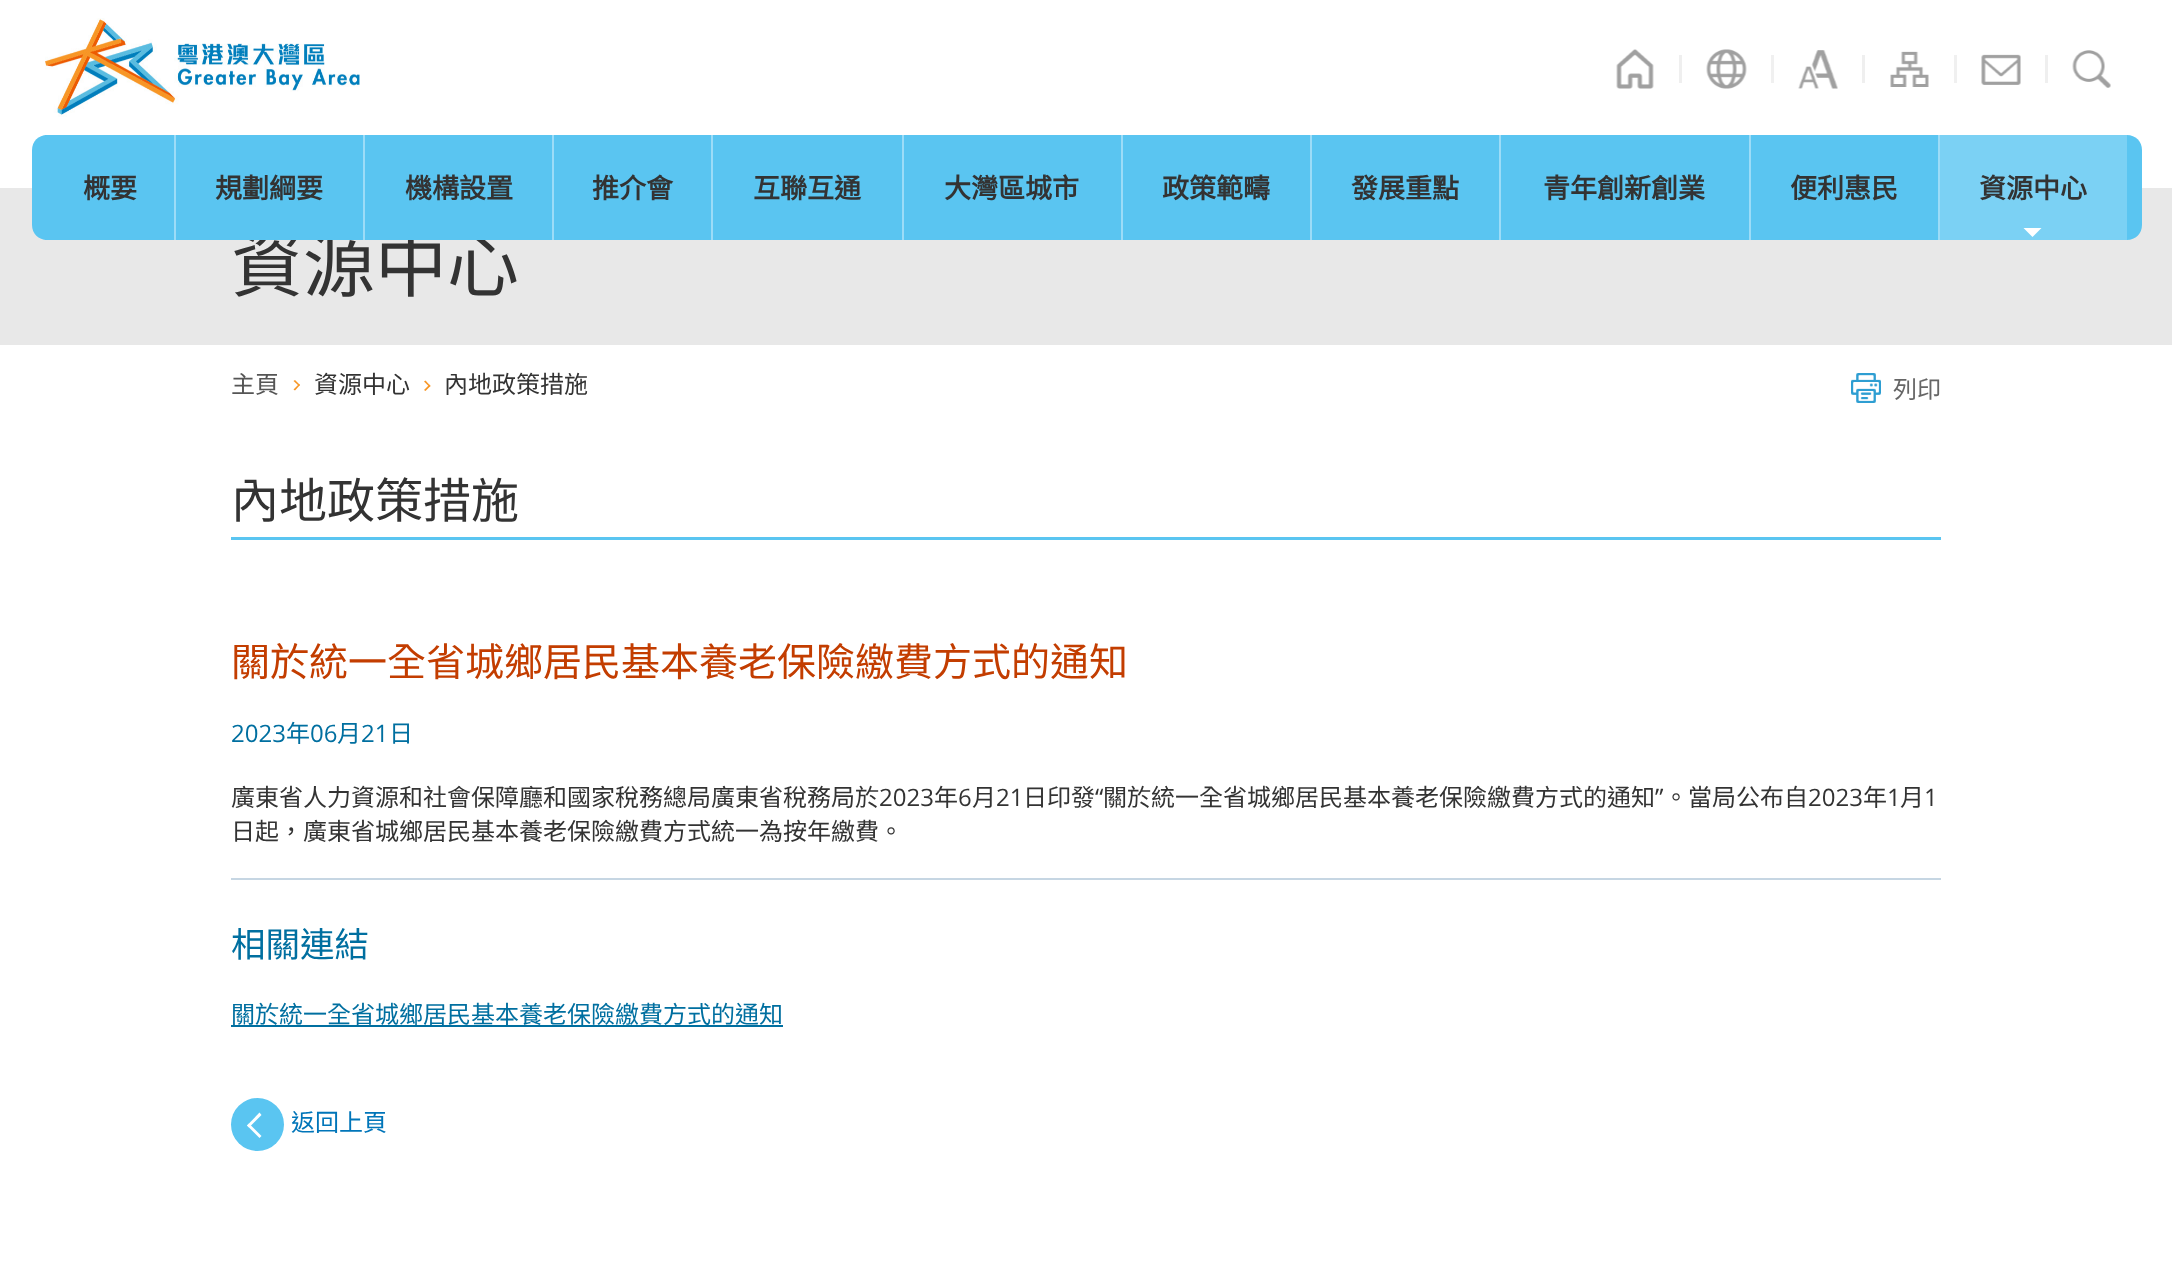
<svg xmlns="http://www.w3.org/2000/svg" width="2172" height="1261">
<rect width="100%" height="100%" fill="#fff"/>
<image x="45" y="18" width="315" height="99" href="media/1.png"/>
<image x="1616" y="49" width="38" height="40" href="media/2.png"/>
<rect x="1679" y="55" width="3" height="28" fill="#efefef"/>
<image x="1706" y="49" width="41" height="40" href="media/3.png"/>
<rect x="1771" y="55" width="3" height="28" fill="#f0f0f0"/>
<image x="1798" y="50" width="40" height="39" href="media/4.png"/>
<rect x="1862" y="55" width="3" height="28" fill="#efefef"/>
<image x="1890" y="51" width="39" height="36" href="media/5.png"/>
<rect x="1954" y="55" width="3" height="28" fill="#f0f0f0"/>
<image x="1981" y="54" width="40" height="31" href="media/6.png"/>
<rect x="2045" y="55" width="3" height="28" fill="#efefef"/>
<image x="2072" y="50" width="39" height="38" href="media/7.png"/>
<rect y="188" width="2172" height="157" fill="#e8e8e8"/>
<rect x="45" y="135" width="129" height="105" fill="#5ac5f1"/>
<path d="M47 135v105c-8.5 0-15-6.5-15-15v-75c0-8.5 6.5-15 15-15z" fill="#5ac5f1"/>
<text x="83" y="198" style="font-family:Noto Sans CJK HK;font-size:27px;font-weight:bold;fill:#333">概要</text>
<text x="231" y="291" style="font-family:Noto Sans CJK HK;font-size:72px;fill:#333">資源中心</text>
<rect x="176" y="135" width="187" height="105" fill="#5ac5f1"/>
<rect x="174" y="135" width="2" height="105" fill="#9cdcf7"/>
<text x="215" y="198" style="font-family:Noto Sans CJK HK;font-size:27px;font-weight:bold;fill:#333">規劃綱要</text>
<rect x="365" y="135" width="187" height="105" fill="#5ac5f1"/>
<rect x="363" y="135" width="2" height="105" fill="#9cdcf7"/>
<text x="405" y="198" style="font-family:Noto Sans CJK HK;font-size:27px;font-weight:bold;fill:#333">機構設置</text>
<rect x="554" y="135" width="157" height="105" fill="#5ac5f1"/>
<rect x="552" y="135" width="2" height="105" fill="#9cdcf7"/>
<text x="592" y="198" style="font-family:Noto Sans CJK HK;font-size:27px;font-weight:bold;fill:#333">推介會</text>
<rect x="713" y="135" width="189" height="105" fill="#5ac5f1"/>
<rect x="711" y="135" width="2" height="105" fill="#9cdcf7"/>
<text x="753" y="198" style="font-family:Noto Sans CJK HK;font-size:27px;font-weight:bold;fill:#333">互聯互通</text>
<rect x="904" y="135" width="217" height="105" fill="#5ac5f1"/>
<rect x="902" y="135" width="2" height="105" fill="#9cdcf7"/>
<text x="944" y="198" style="font-family:Noto Sans CJK HK;font-size:27px;font-weight:bold;fill:#333">大灣區城市</text>
<rect x="1123" y="135" width="187" height="105" fill="#5ac5f1"/>
<rect x="1121" y="135" width="2" height="105" fill="#9cdcf7"/>
<text x="1162" y="198" style="font-family:Noto Sans CJK HK;font-size:27px;font-weight:bold;fill:#333">政策範疇</text>
<rect x="1312" y="135" width="187" height="105" fill="#5ac5f1"/>
<rect x="1310" y="135" width="2" height="105" fill="#9cdcf7"/>
<text x="1351" y="198" style="font-family:Noto Sans CJK HK;font-size:27px;font-weight:bold;fill:#333">發展重點</text>
<rect x="1501" y="135" width="248" height="105" fill="#5ac5f1"/>
<rect x="1499" y="135" width="2" height="105" fill="#9cdcf7"/>
<text x="1543" y="198" style="font-family:Noto Sans CJK HK;font-size:27px;font-weight:bold;fill:#333">青年創新創業</text>
<rect x="1751" y="135" width="187" height="105" fill="#5ac5f1"/>
<rect x="1749" y="135" width="2" height="105" fill="#9cdcf7"/>
<text x="1790" y="198" style="font-family:Noto Sans CJK HK;font-size:27px;font-weight:bold;fill:#333">便利惠民</text>
<rect x="1938" y="135" width="2" height="105" fill="#9cdcf7"/>
<rect x="1940" y="135" width="187" height="105" fill="#7bd1f4"/>
<text x="1979" y="198" style="font-family:Noto Sans CJK HK;font-size:27px;font-weight:bold;fill:#333">資源中心</text>
<path d="M2023.5 228h18l-9 9z" fill="#fff"/>
<path d="M2127 135c8.5 0 15 6.5 15 15v75c0 8.5-6.5 15-15 15z" fill="#5ac5f1"/>
<text x="231" y="393" style="font-family:Noto Sans CJK HK;font-size:24px;fill:#555">主頁</text>
<path d="M295 380l5 5l-1 1l-5.5-5z" fill="#f89727"/>
<path d="M299 384l1 1l-5 5.5l-1.5-1z" fill="#f89727"/>
<text x="314" y="393" style="font-family:Noto Sans CJK HK;font-size:24px;fill:#333">資源中心</text>
<path d="M425.5 380.5l5 5.5l-1 1l-5.5-5.5z" fill="#f89727"/>
<path d="M429.5 384.5l1 1.5l-5 5l-1.5-1z" fill="#f89727"/>
<text x="444" y="393" style="font-family:Noto Sans CJK HK;font-size:24px;fill:#333">內地政策措施</text>
<image x="1851" y="373" width="30" height="30" href="media/8.png"/>
<text x="1893" y="398" style="font-family:Noto Sans CJK HK;font-size:24px;fill:#666">列印</text>
<rect x="231" y="537" width="1710" height="3" fill="#5ac5f1"/>
<text x="231" y="518" style="font-family:Noto Sans CJK HK;font-size:48px;fill:#333">內地政策措施</text>
<text x="231" y="676" style="font-family:Noto Sans CJK HK;font-size:39px;fill:#c33d00">關於統一全省城鄉居民基本養老保險繳費方式的通知</text>
<text x="231" y="742" style="font-family:Open Sans;font-size:24px;fill:#006fa0">2023</text>
<text x="286" y="742" style="font-family:Noto Sans CJK HK;font-size:24px;fill:#006fa0">年</text>
<text x="310" y="742" style="font-family:Open Sans;font-size:24px;fill:#006fa0">06</text>
<text x="337" y="742" style="font-family:Noto Sans CJK HK;font-size:24px;fill:#006fa0">月</text>
<text x="361" y="742" style="font-family:Open Sans;font-size:24px;fill:#006fa0">21</text>
<text x="389" y="742" style="font-family:Noto Sans CJK HK;font-size:24px;fill:#006fa0">日</text>
<text x="231" y="806" style="font-family:Noto Sans CJK HK;font-size:24px;fill:#333">廣東省人力資源和社會保障廳和國家稅務總局廣東省稅務局於</text>
<text x="879" y="806" style="font-family:Open Sans;font-size:24px;fill:#333">2023</text>
<text x="934" y="806" style="font-family:Noto Sans CJK HK;font-size:24px;fill:#333">年</text>
<text x="958" y="806" style="font-family:Open Sans;font-size:24px;fill:#333">6</text>
<text x="972" y="806" style="font-family:Noto Sans CJK HK;font-size:24px;fill:#333">月</text>
<text x="996" y="806" style="font-family:Open Sans;font-size:24px;fill:#333">21</text>
<text x="1023" y="806" style="font-family:Noto Sans CJK HK;font-size:24px;fill:#333">日印發</text>
<text x="1095" y="806" style="font-family:Open Sans;font-size:24px;fill:#333">“</text>
<text x="1103" y="806" style="font-family:Noto Sans CJK HK;font-size:24px;fill:#333">關於統一全省城鄉居民基本養老保險繳費方式的通知</text>
<text x="1655" y="806" style="font-family:Open Sans;font-size:24px;fill:#333">”</text>
<text x="1664" y="806" style="font-family:Noto Sans CJK HK;font-size:24px;fill:#333">。當局公布自</text>
<text x="1808" y="806" style="font-family:Open Sans;font-size:24px;fill:#333">2023</text>
<text x="1863" y="806" style="font-family:Noto Sans CJK HK;font-size:24px;fill:#333">年</text>
<text x="1887" y="806" style="font-family:Open Sans;font-size:24px;fill:#333">1</text>
<text x="1900" y="806" style="font-family:Noto Sans CJK HK;font-size:24px;fill:#333">月</text>
<text x="1924" y="806" style="font-family:Open Sans;font-size:24px;fill:#333">1</text>
<text x="231" y="840" style="font-family:Noto Sans CJK HK;font-size:24px;fill:#333">日起，廣東省城鄉居民基本養老保險繳費方式統一為按年繳費。</text>
<rect x="231" y="878" width="1710" height="2" fill="#c6d6e3"/>
<text x="231" y="957" style="font-family:Noto Sans CJK HK;font-size:34.5px;fill:#006fa0">相關連結</text>
<text x="231" y="1023" style="font-family:Noto Sans CJK HK;font-size:24px;fill:#006fa0">關於統一全省城鄉居民基本養老保險繳費方式的通知</text>
<rect x="231" y="1025" width="552" height="2" fill="#006fa0"/>
<circle cx="257.5" cy="1124.5" r="26.5" fill="#5ac5f1"/>
<text x="291" y="1131" style="font-family:Noto Sans CJK HK;font-size:24px;fill:#0075b9">返回上頁</text>
<path d="M247 1125.5l12.5-13l2 2.5l-12.5 12.5z" fill="#fff"/>
<path d="M247 1125.5l2-2l12.5 12.5l-2 2z" fill="#fff"/>
</svg>
